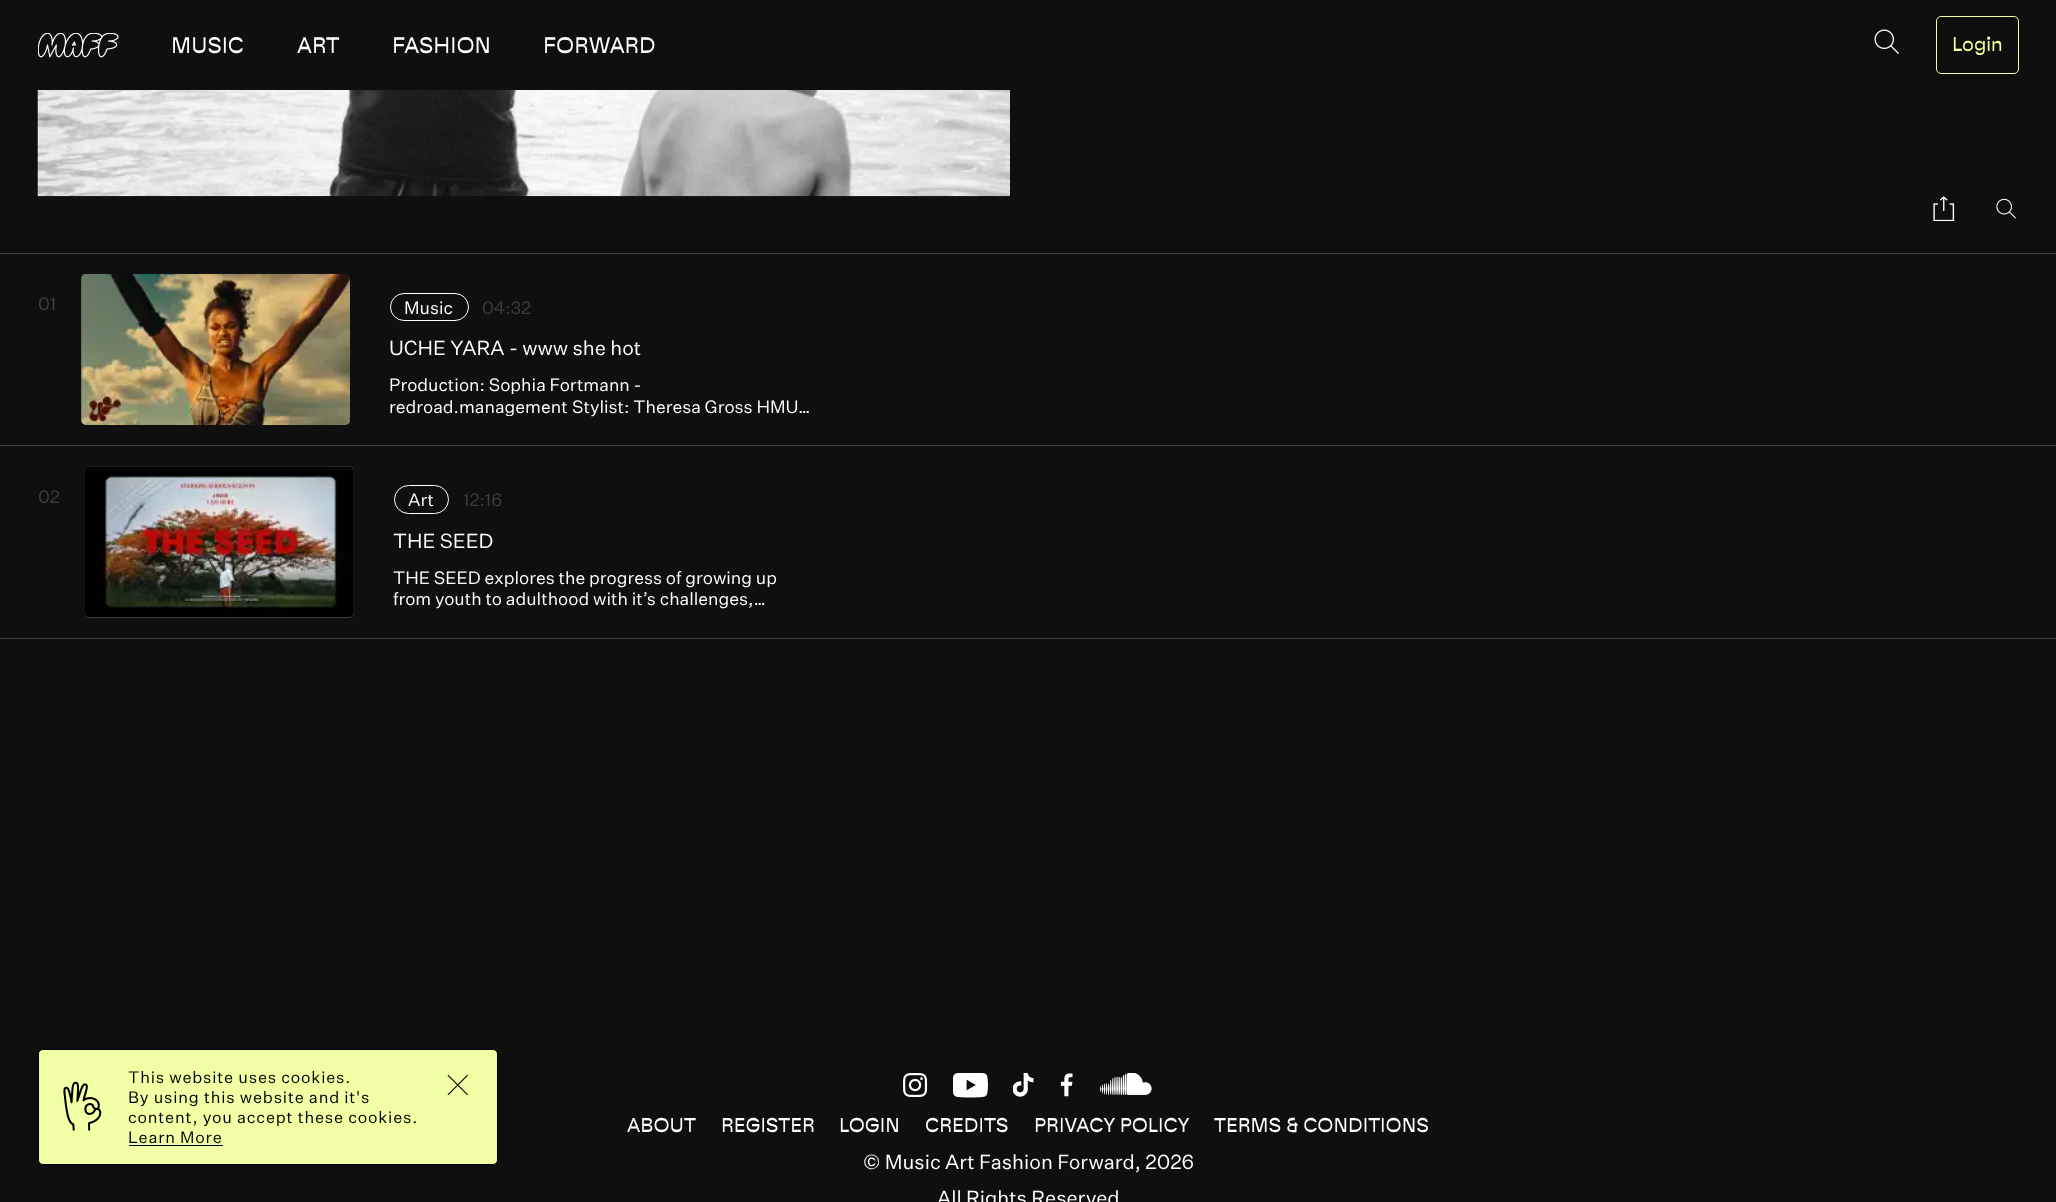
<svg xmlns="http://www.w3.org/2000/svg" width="2056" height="1202">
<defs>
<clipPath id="clip1"><rect x="390" y="374" width="425" height="42"/></clipPath>
</defs>
<rect width="100%" height="100%" fill="#0f0f0f"/>
<image x="38" y="33" width="81" height="25" href="media/1.png"/>
<text x="171" y="53" style="font-family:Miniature;font-size:22.5px;fill:#fff">MUSIC</text>
<text x="297" y="53" style="font-family:Miniature;font-size:22.5px;fill:#fff">ART</text>
<text x="392" y="53" style="font-family:Miniature;font-size:22.5px;fill:#fff">FASHION</text>
<text x="543" y="53" style="font-family:Miniature;font-size:22.5px;fill:#fff">FORWARD</text>
<image x="1874" y="29" width="25" height="25" href="media/2.png"/>
<rect x="1936.5" y="16.5" width="82" height="57" rx="4.5" fill="none" stroke="#f2ffa4"/>
<text x="1952" y="51" style="font-family:Miniature;font-size:20px;fill:#f2ffa4">Login</text>
<image x="37" y="90" width="973" height="107" href="media/3.png"/>
<image x="1933" y="196" width="22" height="25" href="media/4.png"/>
<image x="1996" y="198" width="20" height="21" href="media/5.png"/>
<rect y="253" width="2056" height="1" fill="#3f3f3f"/>
<text x="38" y="310" style="font-family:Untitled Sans;font-size:17.5px;fill:#3f3f3f">01</text>
<rect x="81" y="274" width="269" height="151" rx="5" fill="#515151"/>
<image x="81" y="273" width="269" height="152" href="media/6.png"/>
<rect x="390.5" y="293.5" width="78" height="27" rx="13.5" fill="none" stroke="#fff"/>
<text x="404" y="314" style="font-family:Untitled Sans;font-size:17.5px;fill:#fff">Music</text>
<text x="482" y="314" style="font-family:Untitled Sans;font-size:17.5px;fill:#3f3f3f">04:32</text>
<text x="389" y="355" style="font-family:Untitled Sans;font-size:20px;fill:#fff">UCHE YARA - www she hot</text>
<text x="389" y="391" style="font-family:Untitled Sans;font-size:17.5px;fill:#fff">Production: Sophia Fortmann -</text>
<g clip-path="url(#clip1)">
<text x="389" y="413" style="font-family:Untitled Sans;font-size:17.5px;fill:#fff">redroad.management</text>
</g>
<text x="572" y="413" style="font-family:Untitled Sans;font-size:17.5px;fill:#fff">Stylist: Theresa Gross HMU…</text>
<rect y="445" width="2056" height="1" fill="#3f3f3f"/>
<text x="38" y="503" style="font-family:Untitled Sans;font-size:17.5px;fill:#3f3f3f">02</text>
<rect x="85" y="466" width="269" height="152" rx="5" fill="#515151"/>
<image x="85" y="466" width="269" height="152" href="media/7.png"/>
<rect x="394.5" y="485.5" width="54" height="28" rx="14" fill="none" stroke="#fff"/>
<text x="408" y="506" style="font-family:Untitled Sans;font-size:17.5px;fill:#fff">Art</text>
<text x="463" y="506" style="font-family:Untitled Sans;font-size:17.5px;fill:#3f3f3f">12:16</text>
<text x="393" y="548" style="font-family:Untitled Sans;font-size:20px;fill:#fff">THE SEED</text>
<text x="393" y="584" style="font-family:Untitled Sans;font-size:17.5px;fill:#fff">THE SEED explores the progress of growing up</text>
<text x="393" y="605" style="font-family:Untitled Sans;font-size:17.5px;fill:#fff">from youth to adulthood with it’s challenges,…</text>
<rect y="638" width="2056" height="1" fill="#3f3f3f"/>
<rect x="38.5" y="1049.5" width="459" height="115" rx="4.5" fill="#f2ffa4" stroke="#000"/>
<image x="63" y="1081" width="39" height="50" href="media/8.png"/>
<text x="128" y="1083" style="font-family:Untitled Sans;font-size:16.25px;letter-spacing:0.8px;fill:#000">This website uses cookies.</text>
<text x="128" y="1103" style="font-family:Untitled Sans;font-size:16.25px;letter-spacing:0.8px;fill:#000">By using this website and it's</text>
<text x="128" y="1123" style="font-family:Untitled Sans;font-size:16.25px;letter-spacing:0.8px;fill:#000">content, you accept these cookies.</text>
<text x="128" y="1143" style="font-family:Untitled Sans;font-size:16.25px;letter-spacing:0.8px;fill:#000">Learn More</text>
<rect x="129" y="1145" width="94" height="1" fill="#000"/>
<image x="447" y="1074" width="21" height="22" href="media/9.png"/>
<image x="903" y="1073" width="25" height="24" href="media/10.png"/>
<image x="953" y="1073" width="35" height="25" href="media/11.png"/>
<image x="1013" y="1073" width="21" height="24" href="media/12.png"/>
<image x="1060" y="1073" width="13" height="24" href="media/13.png"/>
<image x="1100" y="1073" width="52" height="22" href="media/14.png"/>
<text x="627" y="1132" style="font-family:Miniature;font-size:20px;fill:#fff">ABOUT</text>
<text x="721" y="1132" style="font-family:Miniature;font-size:20px;fill:#fff">REGISTER</text>
<text x="839" y="1132" style="font-family:Miniature;font-size:20px;fill:#fff">LOGIN</text>
<text x="925" y="1132" style="font-family:Miniature;font-size:20px;fill:#fff">CREDITS</text>
<text x="1034" y="1132" style="font-family:Miniature;font-size:20px;fill:#fff">PRIVACY POLICY</text>
<text x="1214" y="1132" style="font-family:Miniature;font-size:20px;fill:#fff">TERMS &amp; CONDITIONS</text>
<text x="863" y="1169" style="font-family:Untitled Sans;font-size:20px;fill:#fff">© Music Art Fashion Forward, 2026</text>
<text x="937" y="1205" style="font-family:Untitled Sans;font-size:20px;fill:#fff">All Rights Reserved</text>
</svg>
